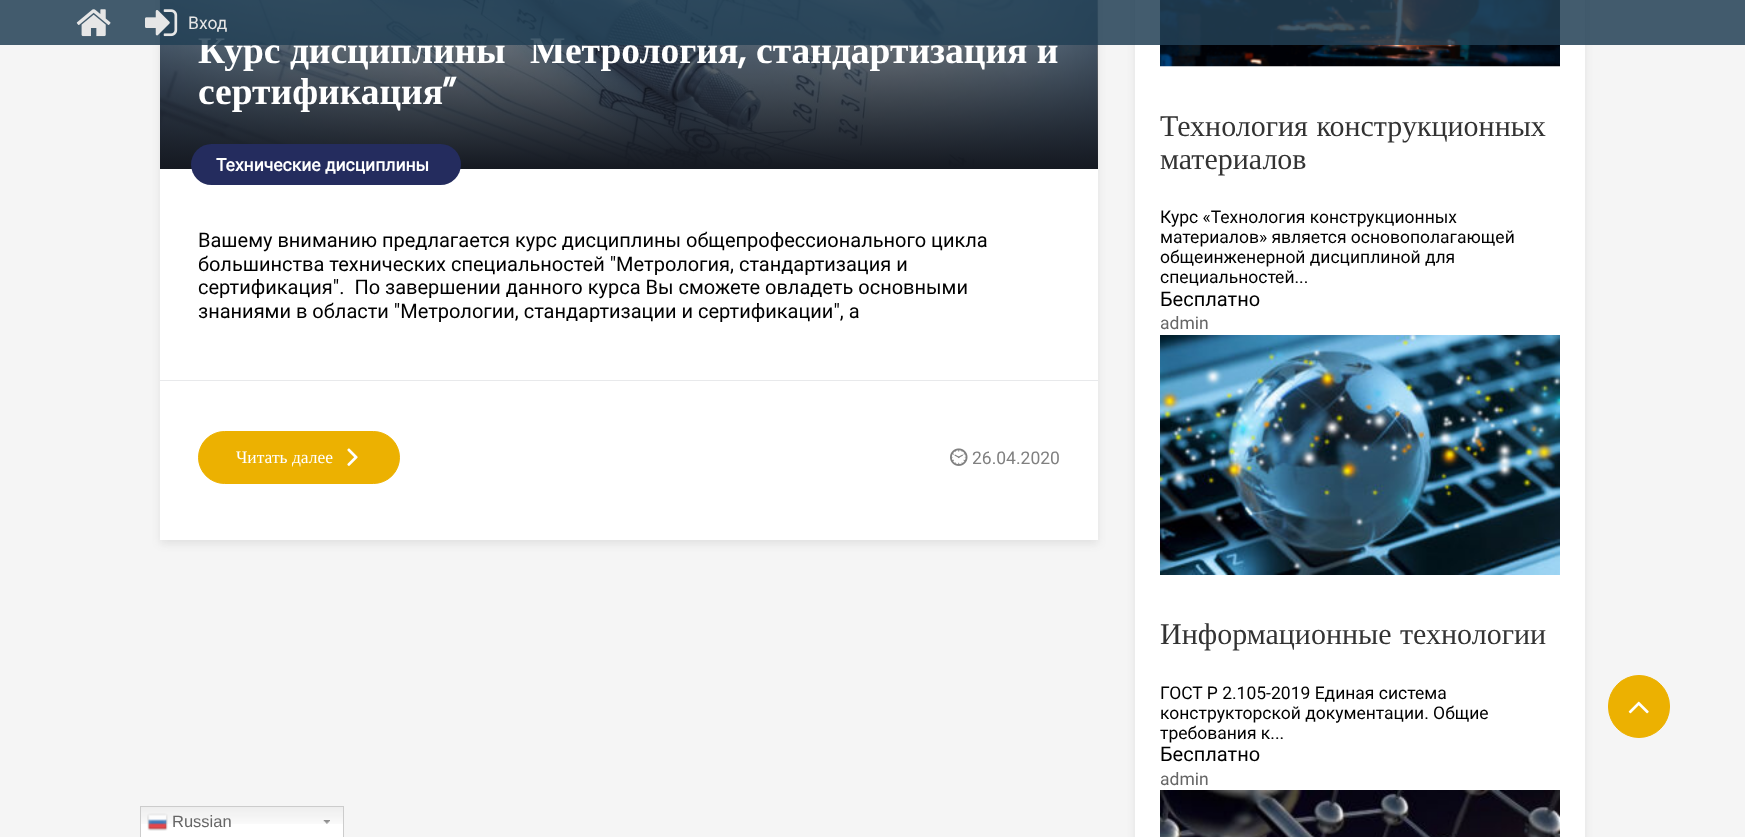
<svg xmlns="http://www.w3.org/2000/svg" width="1745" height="837">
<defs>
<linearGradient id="g1" gradientUnits="userSpaceOnUse" x1="629" y1="-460" x2="629" y2="169"><stop offset="0" stop-color="#000" stop-opacity="0"/><stop offset="0.5" stop-color="#151921" stop-opacity="0"/><stop offset="1" stop-color="#151921"/></linearGradient>
</defs>
<rect width="100%" height="100%" fill="#f5f5f5"/>
<rect x="160" y="-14" width="938" height="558" fill="#3838381a" filter="blur(4.5px)"/>
<rect x="160" width="938" height="540" fill="#fff"/>
<image x="160" y="0" width="938" height="167" href="media/3.png"/>
<rect x="160" width="938" height="169" fill="url(#g1)"/>
<text x="198" y="63" style="font-family:Liberation Serif;font-size:37.5px;font-weight:bold;fill:#fff">Курс дисциплины</text>
<text x="530" y="63" style="font-family:Liberation Serif;font-size:37.5px;font-weight:bold;fill:#fff">Метрология</text>
<rect x="1135" y="-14" width="450" height="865" fill="#3838381a" filter="blur(4.5px)"/>
<rect x="1135" width="450" height="837" fill="#fff"/>
<image x="1160" y="0" width="400" height="67" href="media/6.png"/>
<rect width="1745" height="45" fill="#223f55d9"/>
<image x="76" y="9" width="35" height="28" href="media/1.png"/>
<image x="145" y="9" width="33" height="28" href="media/2.png"/>
<text x="188" y="29" style="font-family:Roboto;font-size:17.5px;fill:#e6e6e6">Вход</text>
<text x="738" y="63" style="font-family:Poppins;font-size:37.5px;font-weight:bold;fill:#fff">,</text>
<text x="756" y="63" style="font-family:Liberation Serif;font-size:37.5px;font-weight:bold;fill:#fff">стандартизация и</text>
<text x="198" y="104" style="font-family:Liberation Serif;font-size:37.5px;font-weight:bold;fill:#fff">сертификация</text>
<text x="442" y="104" style="font-family:Poppins;font-size:37.5px;font-weight:bold;fill:#fff">”</text>
<rect x="191" y="144" width="270" height="41" rx="20.5" fill="#242c5e"/>
<text x="216" y="171" style="font-family:Roboto;font-size:17.5px;font-weight:bold;fill:#fff">Технические дисциплины</text>
<text x="198" y="247" style="font-family:Roboto;font-size:20px;fill:#000">Вашему вниманию предлагается курс дисциплины общепрофессионального цикла</text>
<text x="198" y="271" style="font-family:Roboto;font-size:20px;fill:#000">большинства технических специальностей "Метрология, стандартизация и</text>
<text x="198" y="294" style="font-family:Roboto;font-size:20px;fill:#000" xml:space="preserve">сертификация".  По завершении данного курса Вы сможете овладеть основными</text>
<text x="198" y="318" style="font-family:Roboto;font-size:20px;fill:#000">знаниями в области "Метрологии, стандартизации и сертификации", а</text>
<rect x="160" y="380" width="938" height="1" fill="#e8e9eb"/>
<rect x="198.5" y="431.5" width="201" height="52" rx="26" fill="#ecb101" stroke="#ecb101"/>
<text x="236" y="463" style="font-family:Liberation Serif;font-size:17.5px;fill:#fff">Читать далее</text>
<image x="347" y="448" width="11" height="18" href="media/4.png"/>
<image x="950" y="448" width="18" height="18" href="media/5.png"/>
<text x="972" y="464" style="font-family:Roboto;font-size:17.5px;fill:#808080">26.04.2020</text>
<text x="1160" y="136" word-spacing="1" style="font-family:Liberation Serif;font-size:30px;fill:#333">Технология конструкционных</text>
<text x="1160" y="169" style="font-family:Liberation Serif;font-size:30px;fill:#333">материалов</text>
<text x="1160" y="223" style="font-family:Roboto;font-size:17.5px;fill:#000">Курс «Технология конструкционных</text>
<text x="1160" y="243" style="font-family:Roboto;font-size:17.5px;fill:#000">материалов» является основополагающей</text>
<text x="1160" y="263" style="font-family:Roboto;font-size:17.5px;fill:#000">общеинженерной дисциплиной для</text>
<text x="1160" y="283" style="font-family:Roboto;font-size:17.5px;fill:#000">специальностей...</text>
<text x="1160" y="306" style="font-family:Roboto;font-size:20px;fill:#000">Бесплатно</text>
<text x="1160" y="329" style="font-family:Roboto;font-size:17.5px;fill:#666">admin</text>
<image x="1160" y="335" width="400" height="240" href="media/7.png"/>
<text x="1160" y="644" word-spacing="1" style="font-family:Liberation Serif;font-size:30px;fill:#333">Информационные технологии</text>
<text x="1160" y="699" style="font-family:Roboto;font-size:17.5px;fill:#000">ГОСТ Р 2.105-2019 Единая система</text>
<text x="1160" y="719" style="font-family:Roboto;font-size:17.5px;fill:#000">конструкторской документации. Общие</text>
<text x="1160" y="739" style="font-family:Roboto;font-size:17.5px;fill:#000">требования к...</text>
<text x="1160" y="761" style="font-family:Roboto;font-size:20px;fill:#000">Бесплатно</text>
<text x="1160" y="785" style="font-family:Roboto;font-size:17.5px;fill:#666">admin</text>
<image x="1160" y="790" width="400" height="47" href="media/8.png"/>
<rect x="141" y="824" width="202" height="13" fill="#fff"/>
<image x="141" y="807" width="202" height="17" href="media/9.png"/>
<image x="323" y="820" width="7" height="4" href="media/10.png"/>
<rect x="140.5" y="806.5" width="203" height="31" fill="none" stroke="#ccc"/>
<image x="147" y="813" width="21" height="18" href="media/11.png"/>
<text x="172" y="827" style="font-family:Liberation Sans;font-size:16.5px;fill:#666">Russian</text>
<rect x="1608.5" y="675.5" width="61" height="62" rx="30.5" fill="#ecb101" stroke="#ecb101"/>
<image x="1628" y="701" width="21" height="13" href="media/12.png"/>
</svg>
